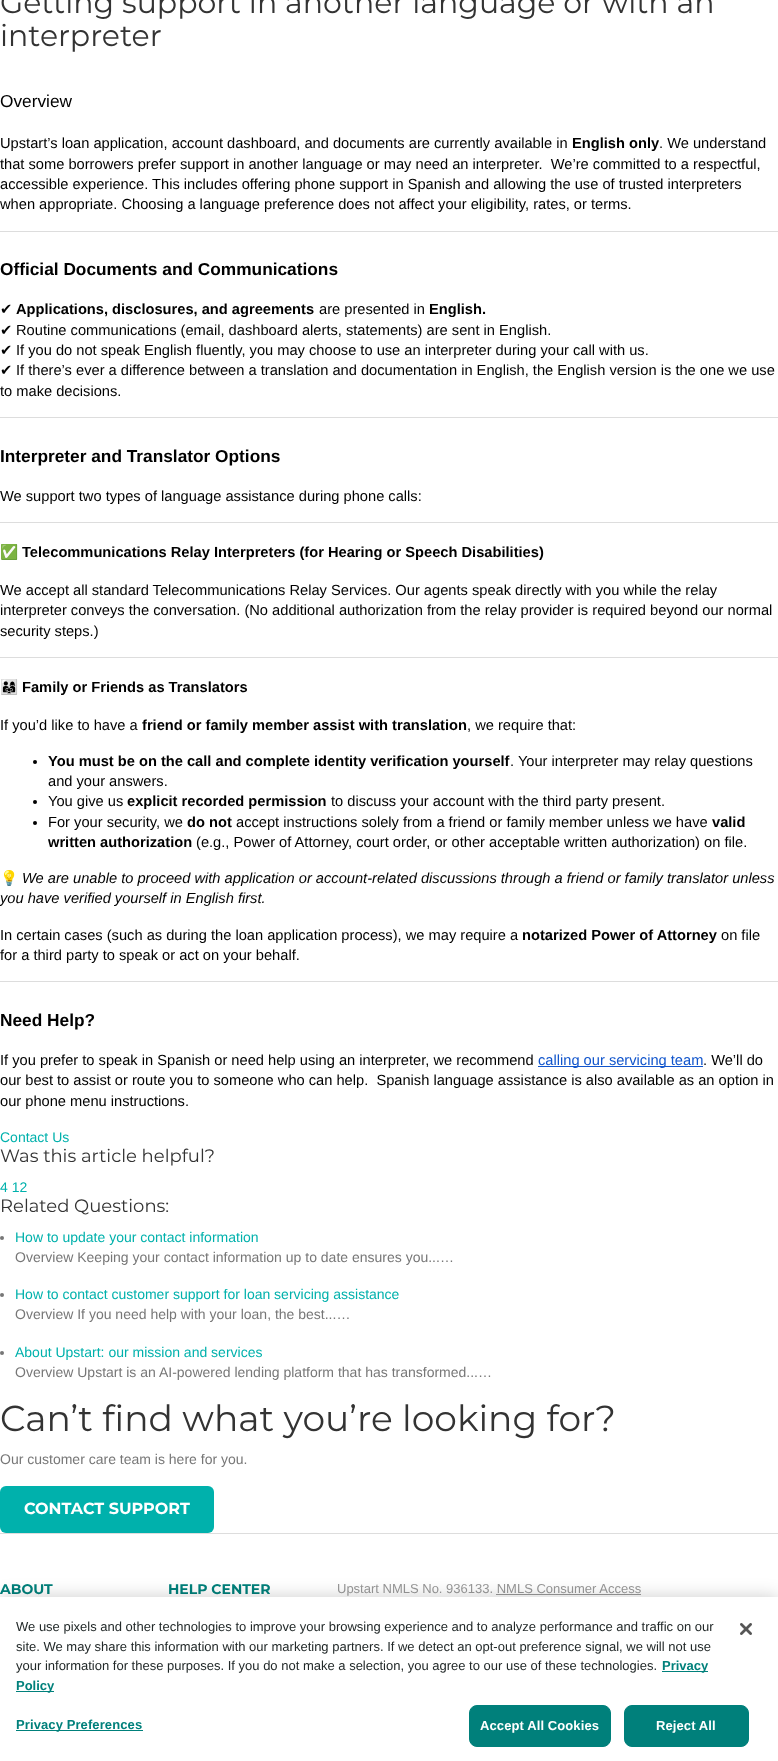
<svg xmlns="http://www.w3.org/2000/svg" width="778" height="1761">
<rect width="100%" height="100%" fill="#fff"/>
<text x="0" y="13" style="font-family:Montserrat;font-size:30px;fill:#333">Getting support in another language or with an</text>
<text x="0" y="46" style="font-family:Montserrat;font-size:30px;fill:#333">interpreter</text>
<text x="0" y="107" style="font-family:Liberation Sans;font-size:17.3px;fill:#000">Overview</text>
<text x="0" y="148" style="font-family:Liberation Sans;font-size:14.67px;fill:#000">Upstart’s loan application, account dashboard, and documents are currently available in</text>
<text x="572" y="148" style="font-family:Liberation Sans;font-size:14.67px;font-weight:bold;fill:#000">English only</text>
<text x="659" y="148" style="font-family:Liberation Sans;font-size:14.67px;fill:#000">. We understand</text>
<text x="0" y="169" style="font-family:Liberation Sans;font-size:14.67px;fill:#000" xml:space="preserve">that some borrowers prefer support in another language or may need an interpreter.  We’re committed to a respectful,</text>
<text x="0" y="189" style="font-family:Liberation Sans;font-size:14.67px;fill:#000">accessible experience. This includes offering phone support in Spanish and allowing the use of trusted interpreters</text>
<text x="0" y="209" style="font-family:Liberation Sans;font-size:14.67px;fill:#000">when appropriate. Choosing a language preference does not affect your eligibility, rates, or terms.</text>
<rect y="231" width="778" height="1" fill="#ddd"/>
<text x="0" y="275" style="font-family:Liberation Sans;font-size:17.3px;font-weight:bold;fill:#000">Official Documents and Communications</text>
<text x="0" y="314" style="font-family:DejaVu Sans;font-size:14.67px;fill:#000">✔</text>
<text x="16" y="314" style="font-family:Liberation Sans;font-size:14.67px;font-weight:bold;fill:#000">Applications, disclosures, and agreements</text>
<text x="319" y="314" style="font-family:Liberation Sans;font-size:14.67px;fill:#000">are presented in</text>
<text x="429" y="314" style="font-family:Liberation Sans;font-size:14.67px;font-weight:bold;fill:#000">English.</text>
<text x="0" y="335" style="font-family:DejaVu Sans;font-size:14.67px;fill:#000">✔</text>
<text x="16" y="335" style="font-family:Liberation Sans;font-size:14.67px;fill:#000">Routine communications (email, dashboard alerts, statements) are sent in English.</text>
<text x="0" y="355" style="font-family:DejaVu Sans;font-size:14.67px;fill:#000">✔</text>
<text x="16" y="355" style="font-family:Liberation Sans;font-size:14.67px;fill:#000">If you do not speak English fluently, you may choose to use an interpreter during your call with us.</text>
<text x="0" y="375" style="font-family:DejaVu Sans;font-size:14.67px;fill:#000">✔</text>
<text x="16" y="375" style="font-family:Liberation Sans;font-size:14.67px;fill:#000">If there’s ever a difference between a translation and documentation in English, the English version is the one we use</text>
<text x="0" y="396" style="font-family:Liberation Sans;font-size:14.67px;fill:#000">to make decisions.</text>
<rect y="417" width="778" height="1" fill="#ddd"/>
<text x="0" y="462" style="font-family:Liberation Sans;font-size:17.3px;font-weight:bold;fill:#000">Interpreter and Translator Options</text>
<text x="0" y="501" style="font-family:Liberation Sans;font-size:14.67px;fill:#000">We support two types of language assistance during phone calls:</text>
<rect y="522" width="778" height="1" fill="#ddd"/>
<text x="0" y="557" style="font-family:Noto Color Emoji;font-size:14.67px;font-weight:bold;fill:#000">✅</text>
<text x="22" y="557" style="font-family:Liberation Sans;font-size:14.67px;font-weight:bold;fill:#000">Telecommunications Relay Interpreters (for Hearing or Speech Disabilities)</text>
<text x="0" y="595" style="font-family:Liberation Sans;font-size:14.67px;fill:#000">We accept all standard Telecommunications Relay Services. Our agents speak directly with you while the relay</text>
<text x="0" y="615" style="font-family:Liberation Sans;font-size:14.67px;fill:#000">interpreter conveys the conversation. (No additional authorization from the relay provider is required beyond our normal</text>
<text x="0" y="636" style="font-family:Liberation Sans;font-size:14.67px;fill:#000">security steps.)</text>
<rect y="657" width="778" height="1" fill="#ddd"/>
<text x="0" y="692" style="font-family:Noto Color Emoji;font-size:14.67px;font-weight:bold;fill:#000">👨‍👩‍👧</text>
<text x="22" y="692" style="font-family:Liberation Sans;font-size:14.67px;font-weight:bold;fill:#000">Family or Friends as Translators</text>
<text x="0" y="730" style="font-family:Liberation Sans;font-size:14.67px;fill:#000">If you’d like to have a</text>
<text x="142" y="730" style="font-family:Liberation Sans;font-size:14.67px;font-weight:bold;fill:#000">friend or family member assist with translation</text>
<text x="467" y="730" style="font-family:Liberation Sans;font-size:14.67px;fill:#000">, we require that:</text>
<circle cx="35" cy="762" r="2" fill="#000"/>
<text x="48" y="766" style="font-family:Liberation Sans;font-size:14.67px;font-weight:bold;fill:#000">You must be on the call and complete identity verification yourself</text>
<text x="510" y="766" style="font-family:Liberation Sans;font-size:14.67px;fill:#000">. Your interpreter may relay questions</text>
<text x="48" y="786" style="font-family:Liberation Sans;font-size:14.67px;fill:#000">and your answers.</text>
<circle cx="35" cy="802" r="2" fill="#000"/>
<text x="48" y="806" style="font-family:Liberation Sans;font-size:14.67px;fill:#000">You give us</text>
<text x="127" y="806" style="font-family:Liberation Sans;font-size:14.67px;font-weight:bold;fill:#000">explicit recorded permission</text>
<text x="331" y="806" style="font-family:Liberation Sans;font-size:14.67px;fill:#000">to discuss your account with the third party present.</text>
<circle cx="35" cy="823" r="2" fill="#000"/>
<text x="48" y="827" style="font-family:Liberation Sans;font-size:14.67px;fill:#000">For your security, we</text>
<text x="187" y="827" style="font-family:Liberation Sans;font-size:14.67px;font-weight:bold;fill:#000">do not</text>
<text x="236" y="827" style="font-family:Liberation Sans;font-size:14.67px;fill:#000">accept instructions solely from a friend or family member unless we have</text>
<text x="712" y="827" style="font-family:Liberation Sans;font-size:14.67px;font-weight:bold;fill:#000">valid</text>
<text x="48" y="847" style="font-family:Liberation Sans;font-size:14.67px;font-weight:bold;fill:#000">written authorization</text>
<text x="196" y="847" style="font-family:Liberation Sans;font-size:14.67px;fill:#000">(e.g., Power of Attorney, court order, or other acceptable written authorization) on file.</text>
<text x="0" y="883" style="font-family:Noto Color Emoji;font-size:14.67px;fill:#000">💡</text>
<text x="22" y="883" style="font-family:Liberation Sans;font-size:14.67px;font-style:italic;fill:#000">We are unable to proceed with application or account-related discussions through a friend or family translator unless</text>
<text x="0" y="903" style="font-family:Liberation Sans;font-size:14.67px;font-style:italic;fill:#000">you have verified yourself in English first.</text>
<text x="0" y="940" style="font-family:Liberation Sans;font-size:14.67px;fill:#000">In certain cases (such as during the loan application process), we may require a</text>
<text x="522" y="940" style="font-family:Liberation Sans;font-size:14.67px;font-weight:bold;fill:#000">notarized Power of Attorney</text>
<text x="721" y="940" style="font-family:Liberation Sans;font-size:14.67px;fill:#000">on file</text>
<text x="0" y="960" style="font-family:Liberation Sans;font-size:14.67px;fill:#000">for a third party to speak or act on your behalf.</text>
<rect y="981" width="778" height="1" fill="#ddd"/>
<text x="0" y="1026" style="font-family:Liberation Sans;font-size:17.3px;font-weight:bold;fill:#000">Need Help?</text>
<text x="0" y="1065" style="font-family:Liberation Sans;font-size:14.67px;fill:#000">If you prefer to speak in Spanish or need help using an interpreter, we recommend</text>
<rect x="538" y="1066" width="165" height="1" fill="#15c"/>
<text x="538" y="1065" style="font-family:Liberation Sans;font-size:14.67px;fill:#15c">calling our servicing team</text>
<text x="703" y="1065" style="font-family:Liberation Sans;font-size:14.67px;fill:#000">. We’ll do</text>
<text x="0" y="1085" style="font-family:Liberation Sans;font-size:14.67px;fill:#000" xml:space="preserve">our best to assist or route you to someone who can help.  Spanish language assistance is also available as an option in</text>
<text x="0" y="1106" style="font-family:Liberation Sans;font-size:14.67px;fill:#000">our phone menu instructions.</text>
<text x="0" y="1142" style="font-family:Liberation Sans;font-size:14px;fill:#00b1ac">Contact Us</text>
<text x="0" y="1162" style="font-family:Montserrat;font-size:18px;fill:#333">Was this article helpful?</text>
<text x="0" y="1192" style="font-family:Liberation Sans;font-size:14px;fill:#00b1ac">4 12</text>
<text x="0" y="1212" style="font-family:Montserrat;font-size:18px;fill:#333">Related Questions:</text>
<circle cx="2" cy="1238" r="2" fill="#777"/>
<text x="15" y="1242" style="font-family:Liberation Sans;font-size:14px;fill:#00b1ac">How to update your contact information</text>
<text x="15" y="1262" style="font-family:Liberation Sans;font-size:14px;fill:#777">Overview Keeping your contact information up to date ensures you...…</text>
<circle cx="2" cy="1295" r="2" fill="#777"/>
<text x="15" y="1299" style="font-family:Liberation Sans;font-size:14px;fill:#00b1ac">How to contact customer support for loan servicing assistance</text>
<text x="15" y="1319" style="font-family:Liberation Sans;font-size:14px;fill:#777">Overview If you need help with your loan, the best...…</text>
<circle cx="2" cy="1353" r="2" fill="#777"/>
<text x="15" y="1357" style="font-family:Liberation Sans;font-size:14px;fill:#00b1ac">About Upstart: our mission and services</text>
<text x="15" y="1377" style="font-family:Liberation Sans;font-size:14px;fill:#777">Overview Upstart is an AI-powered lending platform that has transformed...…</text>
<text x="0" y="1431" style="font-family:Montserrat;font-size:36px;fill:#333">Can’t find what you’re looking for?</text>
<text x="0" y="1464" style="font-family:Liberation Sans;font-size:14px;fill:#777">Our customer care team is here for you.</text>
<rect y="1486" width="214" height="47" rx="6" fill="#00b1ac"/>
<text x="24" y="1514" style="font-family:Montserrat;font-size:16px;font-weight:bold;fill:#fff">CONTACT SUPPORT</text>
<rect y="1533" width="778" height="1" fill="#ddd"/>
<text x="0" y="1594" style="font-family:Montserrat;font-size:14px;font-weight:bold;fill:#00807b">ABOUT</text>
<text x="168" y="1594" style="font-family:Montserrat;font-size:14px;font-weight:bold;fill:#00807b">HELP CENTER</text>
<text x="337" y="1593" style="font-family:Liberation Sans;font-size:13px;fill:#999">Upstart NMLS No. 936133. NMLS Consumer Access</text>
<rect x="496" y="1594" width="145" height="1" fill="#999"/>
<rect y="1597" width="778" height="164" fill="#00000033" filter="blur(9px)"/>
<rect y="1597" width="778" height="164" fill="#fff"/>
<text x="16" y="1631" style="font-family:Liberation Sans;font-size:13px;fill:#222929">We use pixels and other technologies to improve your browsing experience and to analyze performance and traffic on our</text>
<text x="16" y="1651" style="font-family:Liberation Sans;font-size:13px;fill:#222929">site. We may share this information with our marketing partners. If we detect an opt-out preference signal, we will not use</text>
<text x="16" y="1670" style="font-family:Liberation Sans;font-size:13px;fill:#222929">your information for these purposes. If you do not make a selection, you agree to our use of these technologies.</text>
<rect x="662" y="1671" width="46" height="1" fill="#00807b"/>
<text x="662" y="1670" style="font-family:Liberation Sans;font-size:13px;font-weight:bold;fill:#00807b">Privacy</text>
<rect x="16" y="1691" width="38" height="1" fill="#00807b"/>
<text x="16" y="1690" style="font-family:Liberation Sans;font-size:13px;font-weight:bold;fill:#00807b">Policy</text>
<rect x="16" y="1730" width="127" height="1" fill="#00807b"/>
<text x="16" y="1729" style="font-family:Liberation Sans;font-size:13px;font-weight:bold;letter-spacing:0.1px;fill:#00807b">Privacy Preferences</text>
<rect x="469.5" y="1705.5" width="141" height="41" rx="7.5" fill="#00807b" stroke="#00807b"/>
<text x="480" y="1730" style="font-family:Liberation Sans;font-size:13px;font-weight:bold;letter-spacing:0.1px;fill:#fff">Accept All Cookies</text>
<rect x="624.5" y="1705.5" width="124" height="41" rx="7.5" fill="#00807b" stroke="#00807b"/>
<text x="656" y="1730" style="font-family:Liberation Sans;font-size:13px;font-weight:bold;letter-spacing:0.1px;fill:#fff">Reject All</text>
<image x="740" y="1623" width="12" height="12" href="media/1.png"/>
</svg>
